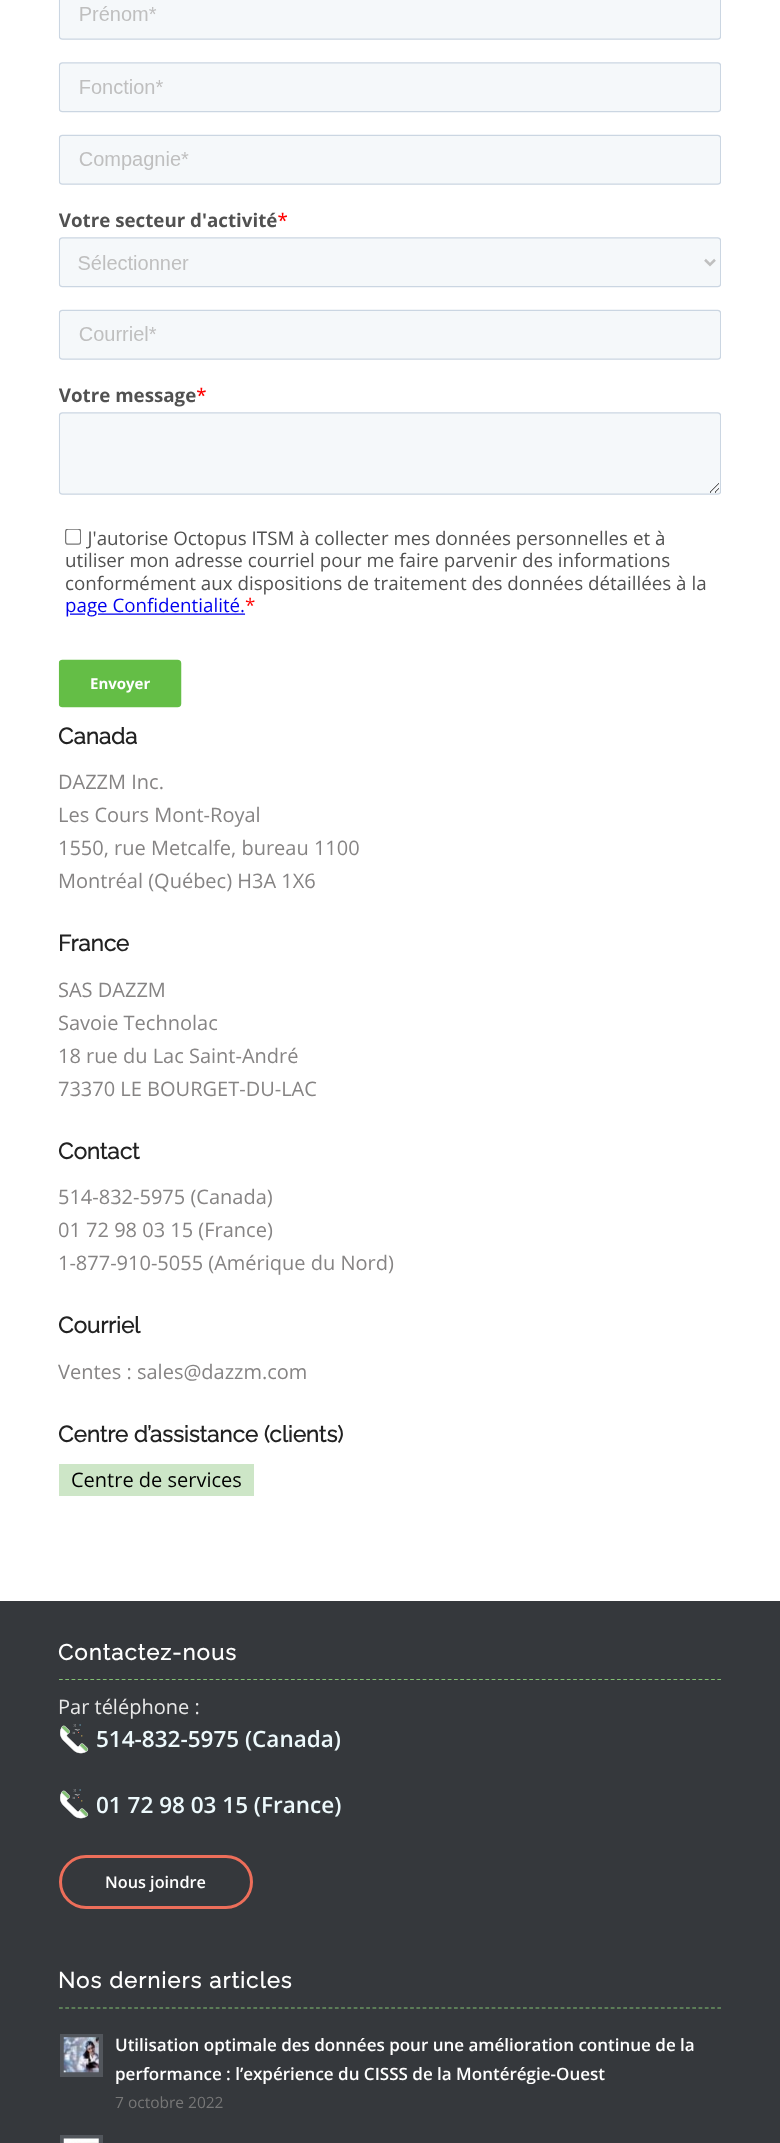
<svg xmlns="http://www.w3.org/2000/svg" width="780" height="2143">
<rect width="100%" height="100%" fill="#fff"/>
<image x="58" y="0" width="663" height="708" href="media/1.png"/>
<text x="58" y="744" style="font-family:Raleway;font-size:22.5px;font-weight:bold;fill:#222">Canada</text>
<text x="58" y="789" style="font-family:Open Sans;font-size:20px;fill:#868484">DAZZM Inc.</text>
<text x="58" y="822" style="font-family:Open Sans;font-size:20px;fill:#868484">Les Cours Mont-Royal</text>
<text x="58" y="855" style="font-family:Open Sans;font-size:20px;fill:#868484">1550, rue Metcalfe, bureau 1100</text>
<text x="58" y="888" style="font-family:Open Sans;font-size:20px;fill:#868484">Montréal (Québec) H3A 1X6</text>
<text x="58" y="951" style="font-family:Raleway;font-size:22.5px;font-weight:bold;fill:#222">France</text>
<text x="58" y="997" style="font-family:Open Sans;font-size:20px;fill:#868484">SAS DAZZM</text>
<text x="58" y="1030" style="font-family:Open Sans;font-size:20px;fill:#868484">Savoie Technolac</text>
<text x="58" y="1063" style="font-family:Open Sans;font-size:20px;fill:#868484">18 rue du Lac Saint-André</text>
<text x="58" y="1096" style="font-family:Open Sans;font-size:20px;fill:#868484">73370 LE BOURGET-DU-LAC</text>
<text x="58" y="1159" style="font-family:Raleway;font-size:22.5px;font-weight:bold;fill:#222">Contact</text>
<text x="58" y="1204" style="font-family:Open Sans;font-size:20px;fill:#868484">514-832-5975 (Canada)</text>
<text x="58" y="1237" style="font-family:Open Sans;font-size:20px;fill:#868484">01 72 98 03 15 (France)</text>
<text x="58" y="1270" style="font-family:Open Sans;font-size:20px;fill:#868484">1-877-910-5055 (Amérique du Nord)</text>
<text x="58" y="1333" style="font-family:Raleway;font-size:22.5px;font-weight:bold;fill:#222">Courriel</text>
<text x="58" y="1379" style="font-family:Open Sans;font-size:20px;fill:#868484">Ventes : sales@dazzm.com</text>
<text x="58" y="1442" style="font-family:Raleway;font-size:22.5px;font-weight:bold;fill:#222">Centre d’assistance (clients)</text>
<rect x="59" y="1464" width="195" height="32" fill="#cde6c7"/>
<text x="71" y="1487" style="font-family:Open Sans;font-size:20px;fill:#000">Centre de services</text>
<rect y="1601" width="780" height="542" fill="#35383c"/>
<path d="M59 1679.5h662" fill="none" stroke="#82c073" stroke-width="1.2" stroke-dasharray="3.75 2.52"/>
<text x="58" y="1660" style="font-family:Raleway;font-size:22px;font-weight:bold;letter-spacing:1.25px;fill:#fff">Contactez-nous</text>
<text x="58" y="1714" style="font-family:Open Sans;font-size:20px;fill:#e8e8e8">Par téléphone :</text>
<image x="60" y="1724" width="29" height="30" href="media/2.png"/>
<text x="96" y="1747" style="font-family:Open Sans;font-size:22.5px;font-weight:600;fill:#edf9fc">514-832-5975 (Canada)</text>
<image x="60" y="1789" width="29" height="30" href="media/2.png"/>
<text x="96" y="1813" style="font-family:Open Sans;font-size:22.5px;font-weight:600;fill:#edf9fc">01 72 98 03 15 (France)</text>
<rect x="60.5" y="1856.5" width="191" height="51" rx="25.5" fill="none" stroke="#ed6e5a" stroke-width="3"/>
<text x="105" y="1888" style="font-family:Open Sans;font-size:16.25px;font-weight:600;fill:#fff">Nous joindre</text>
<path d="M59 2008h662" fill="none" stroke="#82c073" stroke-width="1.2" stroke-dasharray="3.75 2.52"/>
<text x="58" y="1988" style="font-family:Raleway;font-size:22px;font-weight:bold;letter-spacing:1.25px;fill:#fff">Nos derniers articles</text>
<rect x="60" y="2034" width="43" height="43" fill="#52565c"/>
<image x="63" y="2037" width="36" height="36" href="media/3.png"/>
<text x="115" y="2051" style="font-family:Open Sans;font-size:17px;font-weight:600;fill:#fff">Utilisation optimale des données pour une amélioration continue de la</text>
<text x="115" y="2080" style="font-family:Open Sans;font-size:17px;font-weight:600;fill:#fff">performance : l’expérience du CISSS de la Montérégie-Ouest</text>
<text x="115" y="2108" style="font-family:Open Sans;font-size:15.5px;fill:#777">7 octobre 2022</text>
<rect x="60" y="2135" width="43" height="8" fill="#52565c"/>
<image x="63" y="2138" width="36" height="5" href="media/4.png"/>
</svg>
